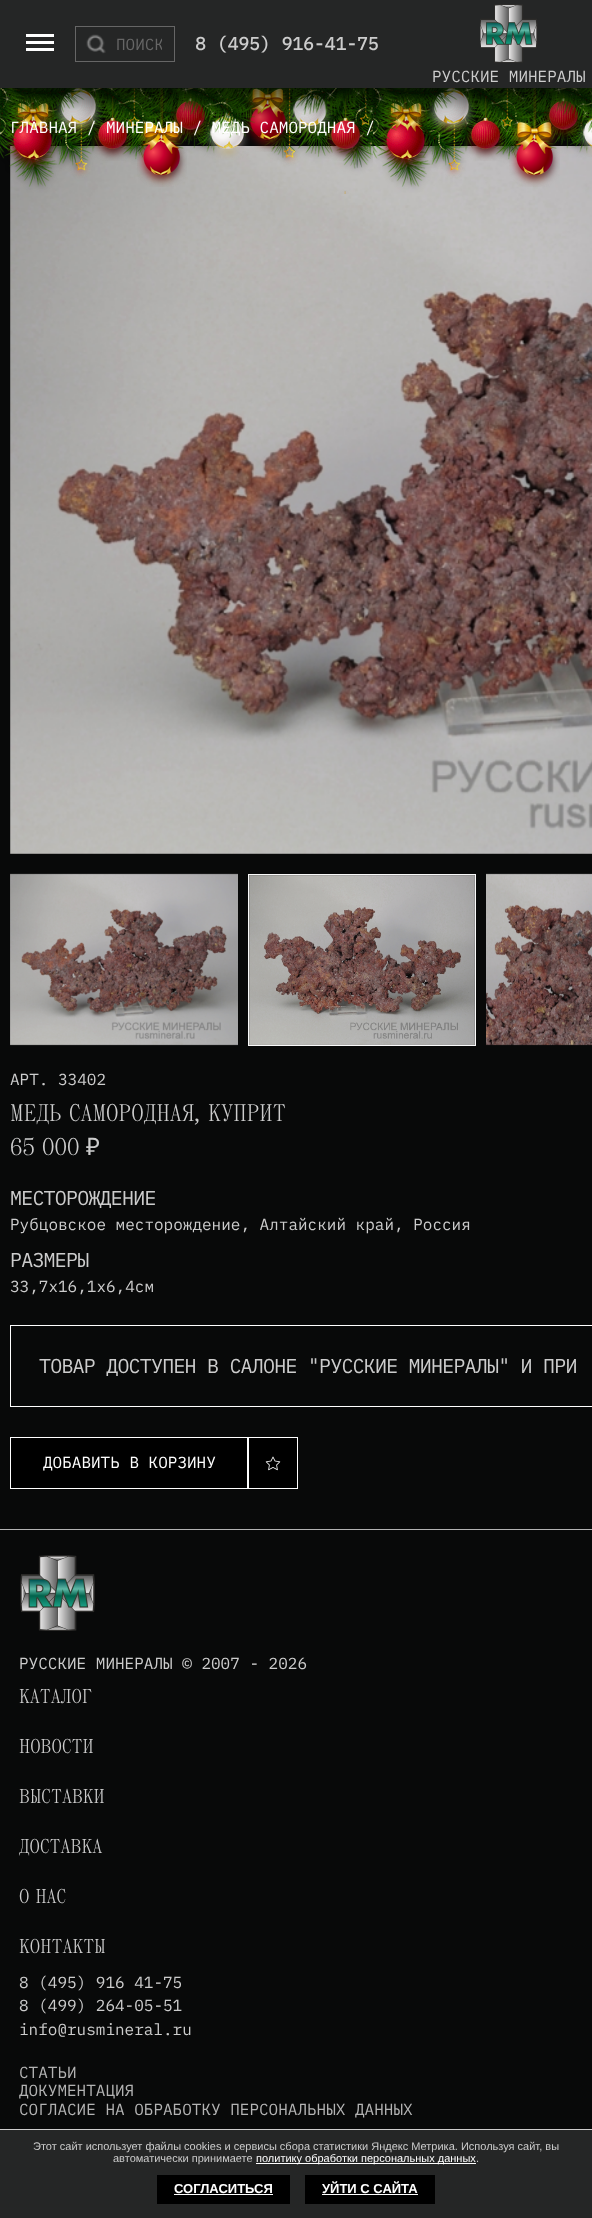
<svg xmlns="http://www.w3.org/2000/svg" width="592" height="2218">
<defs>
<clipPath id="clip1"><rect x="116" y="34" width="46" height="20"/></clipPath>
</defs>
<rect width="100%" height="100%" fill="#080909"/>
<rect x="10" y="146" width="582" height="708" fill="#333"/>
<image x="10" y="146" width="582" height="708" href="media/25.png"/>
<image x="0" y="88" width="592" height="106" href="media/1.png"/>
<image x="7" y="88" width="51" height="82" href="media/3.png"/>
<image x="0" y="88" width="25" height="71" href="media/2.png"/>
<image x="54" y="88" width="49" height="48" href="media/5.png"/>
<image x="25" y="88" width="61" height="27" href="media/4.png"/>
<image x="137" y="88" width="50" height="99" href="media/6.png"/>
<image x="170" y="88" width="41" height="52" href="media/7.png"/>
<image x="204" y="94" width="46" height="66" href="media/13.png"/>
<image x="177" y="88" width="28" height="31" href="media/8.png"/>
<image x="243" y="88" width="49" height="64" href="media/10.png"/>
<image x="205" y="88" width="50" height="50" href="media/9.png"/>
<image x="287" y="88" width="46" height="49" href="media/11.png"/>
<image x="92" y="97" width="41" height="64" href="media/12.png"/>
<image x="325" y="98" width="40" height="63" href="media/16.png"/>
<image x="289" y="88" width="78" height="28" href="media/14.png"/>
<image x="367" y="88" width="6" height="69" href="media/15.png"/>
<image x="379" y="88" width="52" height="82" href="media/18.png"/>
<image x="373" y="88" width="25" height="71" href="media/17.png"/>
<image x="427" y="88" width="49" height="48" href="media/5.png"/>
<image x="398" y="88" width="61" height="27" href="media/4.png"/>
<image x="509" y="88" width="51" height="99" href="media/19.png"/>
<image x="543" y="88" width="41" height="52" href="media/7.png"/>
<image x="465" y="97" width="41" height="64" href="media/20.png"/>
<image x="577" y="115" width="15" height="42" href="media/22.png"/>
<image x="550" y="88" width="28" height="31" href="media/8.png"/>
<image x="578" y="88" width="14" height="45" href="media/21.png"/>
<rect y="-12" width="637" height="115" fill="#000000bf" filter="blur(15px)"/>
<rect width="592" height="88" fill="#252626"/>
<rect x="26" y="34" width="28" height="3" fill="#fff"/>
<rect x="26" y="41" width="28" height="3" fill="#fff"/>
<rect x="26" y="48" width="28" height="3" fill="#fff"/>
<rect x="75.5" y="26.5" width="99" height="35" fill="none" stroke="#666"/>
<image x="86" y="34" width="20" height="20" href="media/23.png"/>
<g clip-path="url(#clip1)">
<text x="116" y="50" style="font-family:IBM Plex Mono;font-size:16px;fill:#666">ПОИСК</text>
</g>
<text x="195" y="50" style="font-family:IBM Plex Mono;font-size:18px;font-weight:bold;fill:#ccc">8 (495) 916-41-75</text>
<image x="480" y="4" width="58" height="59" href="media/24.png"/>
<text x="432" y="82" style="font-family:IBM Plex Mono;font-size:16px;fill:#ccc">РУССКИЕ МИНЕРАЛЫ</text>
<text x="10" y="133" style="font-family:IBM Plex Mono;font-size:16px;fill:#fff">ГЛАВНАЯ / МИНЕРАЛЫ / МЕДЬ САМОРОДНАЯ /</text>
<image x="10" y="873" width="228" height="173" href="media/26.png"/>
<rect x="248.5" y="874.5" width="227" height="171" fill="none" stroke="#fafafa"/>
<image x="249" y="875" width="226" height="170" href="media/27.png"/>
<image x="486" y="873" width="106" height="173" href="media/28.png"/>
<text x="10" y="1085" style="font-family:IBM Plex Mono;font-size:16px;fill:#ccc">АРТ. 33402</text>
<text x="10" y="1121" style="font-family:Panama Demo;font-size:24px;fill:#ccc">МЕДЬ САМОРОДНАЯ</text>
<text x="194" y="1121" style="font-family:Liberation Serif;font-size:24px;fill:#ccc">,</text>
<text x="208" y="1121" style="font-family:Panama Demo;font-size:24px;fill:#ccc">КУПРИТ</text>
<text x="10" y="1155" style="font-family:Panama Demo;font-size:24px;fill:#ccc">65 000</text>
<text x="86" y="1155" style="font-family:Noto Sans;font-size:24px;fill:#ccc">₽</text>
<text x="10" y="1205" style="font-family:IBM Plex Mono;font-size:20px;letter-spacing:-0.8px;fill:#ccc">МЕСТОРОЖДЕНИЕ</text>
<text x="10" y="1230" style="font-family:IBM Plex Mono;font-size:16px;fill:#ccc">Рубцовское месторождение, Алтайский край, Россия</text>
<text x="10" y="1267" style="font-family:IBM Plex Mono;font-size:20px;letter-spacing:-0.8px;fill:#ccc">РАЗМЕРЫ</text>
<text x="10" y="1292" style="font-family:IBM Plex Mono;font-size:16px;fill:#ccc">33,7х16,1х6,4см</text>
<rect x="10.5" y="1325.5" width="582" height="81" fill="none" stroke="#fff"/>
<text x="39" y="1373" style="font-family:IBM Plex Mono;font-size:20px;letter-spacing:-0.8px;fill:#ccc">ТОВАР ДОСТУПЕН В САЛОНЕ "РУССКИЕ МИНЕРАЛЫ" И ПРИ</text>
<rect x="10.5" y="1437.5" width="237" height="51" fill="#000" stroke="#fff"/>
<text x="43" y="1468" style="font-family:IBM Plex Mono;font-size:16px;fill:#fff">ДОБАВИТЬ В КОРЗИНУ</text>
<rect x="248.5" y="1437.5" width="49" height="51" fill="#000" stroke="#fff"/>
<image x="265" y="1456" width="16" height="15" href="media/29.png"/>
<rect y="1529" width="592" height="1" fill="#b3b3b3"/>
<image x="20" y="1555" width="75" height="76" href="media/30.png"/>
<text x="19" y="1669" style="font-family:IBM Plex Mono;font-size:16px;fill:#ccc">РУССКИЕ МИНЕРАЛЫ © 2007 - 2026</text>
<text x="19" y="1703" style="font-family:Panama Demo;font-size:20px;fill:#ccc">КАТАЛОГ</text>
<text x="19" y="1753" style="font-family:Panama Demo;font-size:20px;fill:#ccc">НОВОСТИ</text>
<text x="19" y="1803" style="font-family:Panama Demo;font-size:20px;fill:#ccc">ВЫСТАВКИ</text>
<text x="19" y="1853" style="font-family:Panama Demo;font-size:20px;fill:#ccc">ДОСТАВКА</text>
<text x="19" y="1903" style="font-family:Panama Demo;font-size:20px;fill:#ccc">О НАС</text>
<text x="19" y="1953" style="font-family:Panama Demo;font-size:20px;fill:#ccc">КОНТАКТЫ</text>
<text x="19" y="1988" style="font-family:IBM Plex Mono;font-size:16px;fill:#ccc">8 (495) 916 41-75</text>
<text x="19" y="2011" style="font-family:IBM Plex Mono;font-size:16px;fill:#ccc">8 (499) 264-05-51</text>
<text x="19" y="2035" style="font-family:IBM Plex Mono;font-size:16px;fill:#ccc">info@rusmineral.ru</text>
<text x="19" y="2078" style="font-family:IBM Plex Mono;font-size:16px;fill:#b3b3b3">СТАТЬИ</text>
<text x="19" y="2096" style="font-family:IBM Plex Mono;font-size:16px;fill:#b3b3b3">ДОКУМЕНТАЦИЯ</text>
<text x="19" y="2115" style="font-family:IBM Plex Mono;font-size:16px;fill:#b3b3b3">СОГЛАСИЕ НА ОБРАБОТКУ ПЕРСОНАЛЬНЫХ ДАННЫХ</text>
<rect y="2130" width="592" height="88" fill="#252626"/>
<rect y="2129" width="592" height="1" fill="#ccc"/>
<text x="33" y="2150" style="font-family:Liberation Sans;font-size:11px;fill:#ccc">Этот сайт использует файлы cookies и сервисы сбора статистики Яндекс Метрика. Используя сайт, вы</text>
<text x="113" y="2162" style="font-family:Liberation Sans;font-size:11px;fill:#ccc">автоматически принимаете</text>
<rect x="256" y="2163" width="220" height="1" fill="#fff"/>
<text x="256" y="2162" style="font-family:Liberation Sans;font-size:11px;fill:#fff">политику обработки персональных данных</text>
<text x="476" y="2162" style="font-family:Liberation Sans;font-size:11px;fill:#ccc">.</text>
<rect x="157" y="2175" width="133" height="29" fill="#000"/>
<text x="174" y="2193" style="font-family:Liberation Sans;font-size:13px;font-weight:bold;fill:#fff">СОГЛАСИТЬСЯ</text>
<rect x="174" y="2194" width="99" height="1" fill="#fff"/>
<rect x="305" y="2175" width="130" height="29" fill="#000"/>
<text x="322" y="2193" style="font-family:Liberation Sans;font-size:13px;font-weight:bold;fill:#fff">УЙТИ С САЙТА</text>
<rect x="322" y="2194" width="96" height="1" fill="#fff"/>
</svg>
